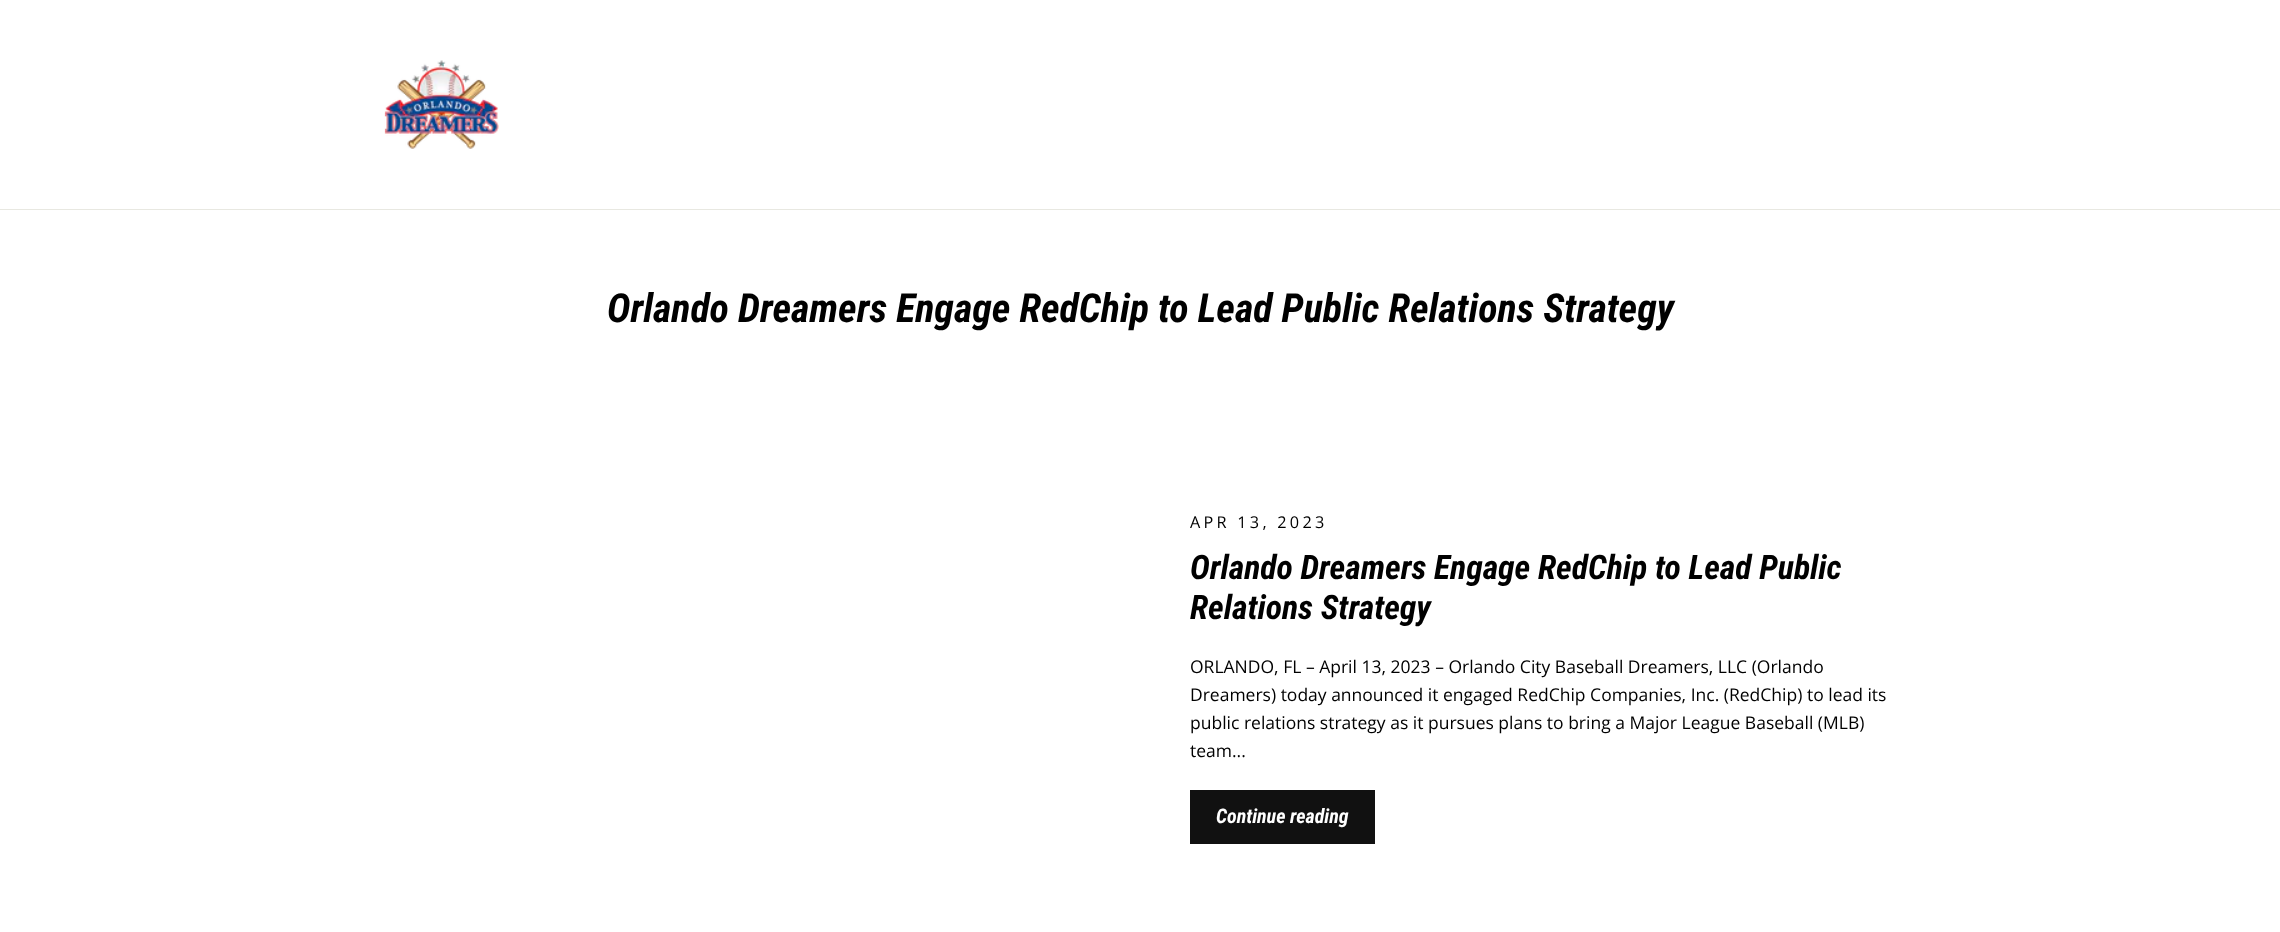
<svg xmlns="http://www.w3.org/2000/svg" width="2280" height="932">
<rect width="100%" height="100%" fill="#fff"/>
<rect y="209" width="2280" height="1" fill="#e8e8e1"/>
<image x="384" y="60" width="115" height="89" href="media/1.png"/>
<text x="607" y="322" style="font-family:Roboto Condensed;font-size:40px;font-weight:bold;font-style:italic;fill:#000">Orlando Dreamers Engage RedChip to Lead Public Relations Strategy</text>
<text x="1190" y="528" style="font-family:Open Sans;font-size:16.25px;letter-spacing:3.25px;fill:#000">APR 13, 2023</text>
<text x="1190" y="579" style="font-family:Roboto Condensed;font-size:33.75px;font-weight:bold;font-style:italic;fill:#000">Orlando Dreamers Engage RedChip to Lead Public</text>
<text x="1190" y="619" style="font-family:Roboto Condensed;font-size:33.75px;font-weight:bold;font-style:italic;fill:#000">Relations Strategy</text>
<text x="1190" y="673" style="font-family:Open Sans;font-size:17.5px;fill:#000">ORLANDO, FL – April 13, 2023 – Orlando City Baseball Dreamers, LLC (Orlando</text>
<text x="1190" y="701" style="font-family:Open Sans;font-size:17.5px;fill:#000">Dreamers) today announced it engaged RedChip Companies, Inc. (RedChip) to lead its</text>
<text x="1190" y="729" style="font-family:Open Sans;font-size:17.5px;fill:#000">public relations strategy as it pursues plans to bring a Major League Baseball (MLB)</text>
<text x="1190" y="757" style="font-family:Open Sans;font-size:17.5px;fill:#000">team...</text>
<rect x="1190" y="790" width="185" height="54" fill="#111"/>
<text x="1216" y="823" style="font-family:Roboto Condensed;font-size:20px;font-weight:bold;font-style:italic;fill:#fff">Continue reading</text>
</svg>
